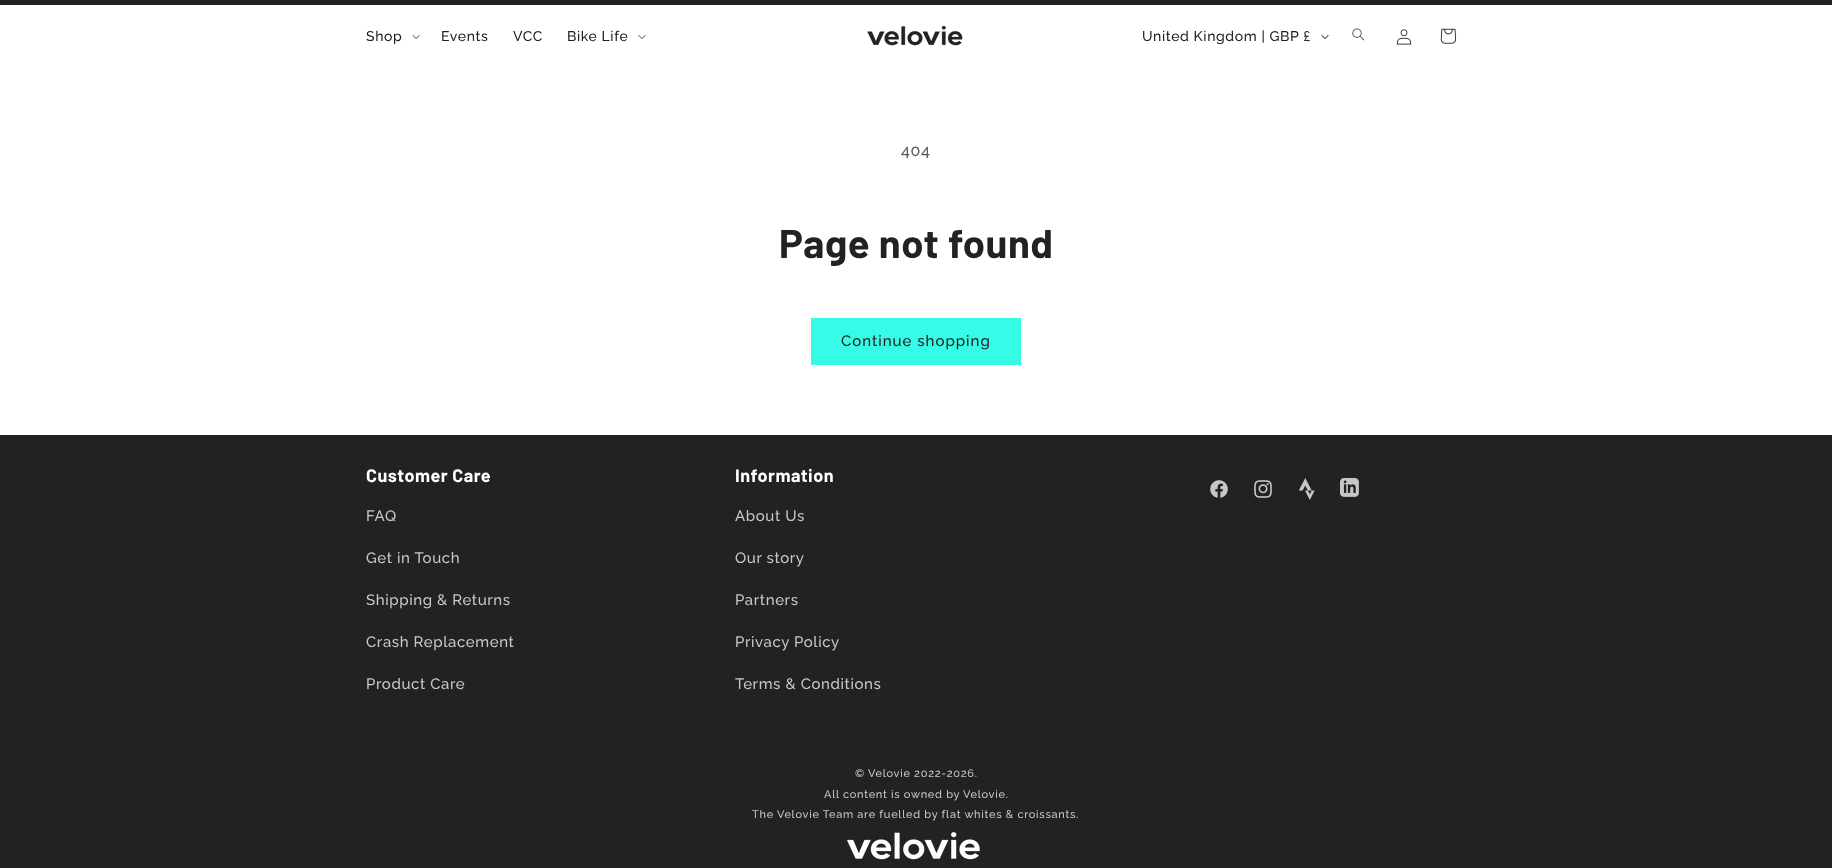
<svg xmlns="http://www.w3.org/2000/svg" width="1832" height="868">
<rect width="100%" height="100%" fill="#fff"/>
<rect width="1832" height="5" fill="#222"/>
<text x="366" y="41" style="font-family:Raleway;font-size:14px;font-weight:500;letter-spacing:0.6px;fill:#222">Shop</text>
<image x="412" y="35" width="8" height="4" href="media/1.png"/>
<text x="441" y="41" style="font-family:Raleway;font-size:14px;font-weight:500;letter-spacing:0.6px;fill:#222">Events</text>
<text x="513" y="41" style="font-family:Raleway;font-size:14px;font-weight:500;letter-spacing:0.6px;fill:#222">VCC</text>
<text x="567" y="41" style="font-family:Raleway;font-size:14px;font-weight:500;letter-spacing:0.6px;fill:#222">Bike Life</text>
<image x="638" y="35" width="8" height="4" href="media/2.png"/>
<image x="867" y="25" width="96" height="21" href="media/3.png"/>
<text x="1142" y="41" style="font-family:Raleway;font-size:14px;font-weight:500;letter-spacing:0.6px;fill:#222">United Kingdom | GBP £</text>
<image x="1321" y="35" width="8" height="4" href="media/4.png"/>
<image x="1352" y="28" width="13" height="13" href="media/5.png"/>
<image x="1396" y="29" width="16" height="16" href="media/6.png"/>
<image x="1440" y="28" width="17" height="16" href="media/7.png"/>
<text x="901" y="156" style="font-family:Raleway;font-size:16px;font-weight:500;letter-spacing:0.6px;fill:#595959">404</text>
<text x="779" y="258" style="font-family:Barlow;font-size:40px;font-weight:bold;letter-spacing:0.6px;fill:#222">Page not found</text>
<rect x="811" y="318" width="210" height="47" fill="#36fbe7"/>
<text x="841" y="346" style="font-family:Raleway;font-size:15px;font-weight:500;letter-spacing:1px;fill:#222">Continue shopping</text>
<rect y="435" width="1832" height="433" fill="#222"/>
<text x="366" y="482" style="font-family:Barlow;font-size:18px;font-weight:bold;letter-spacing:0.5px;fill:#fff">Customer Care</text>
<text x="366" y="521" style="font-family:Raleway;font-size:15px;font-weight:500;letter-spacing:0.6px;fill:#c8c8c8">FAQ</text>
<text x="366" y="563" style="font-family:Raleway;font-size:15px;font-weight:500;letter-spacing:0.6px;fill:#c8c8c8">Get in Touch</text>
<text x="366" y="605" style="font-family:Raleway;font-size:15px;font-weight:500;letter-spacing:0.6px;fill:#c8c8c8">Shipping &amp; Returns</text>
<text x="366" y="647" style="font-family:Raleway;font-size:15px;font-weight:500;letter-spacing:0.6px;fill:#c8c8c8">Crash Replacement</text>
<text x="366" y="689" style="font-family:Raleway;font-size:15px;font-weight:500;letter-spacing:0.6px;fill:#c8c8c8">Product Care</text>
<text x="735" y="482" style="font-family:Barlow;font-size:18px;font-weight:bold;letter-spacing:0.5px;fill:#fff">Information</text>
<text x="735" y="521" style="font-family:Raleway;font-size:15px;font-weight:500;letter-spacing:0.6px;fill:#c8c8c8">About Us</text>
<text x="735" y="563" style="font-family:Raleway;font-size:15px;font-weight:500;letter-spacing:0.6px;fill:#c8c8c8">Our story</text>
<text x="735" y="605" style="font-family:Raleway;font-size:15px;font-weight:500;letter-spacing:0.6px;fill:#c8c8c8">Partners</text>
<text x="735" y="647" style="font-family:Raleway;font-size:15px;font-weight:500;letter-spacing:0.6px;fill:#c8c8c8">Privacy Policy</text>
<text x="735" y="689" style="font-family:Raleway;font-size:15px;font-weight:500;letter-spacing:0.6px;fill:#c8c8c8">Terms &amp; Conditions</text>
<image x="1210" y="480" width="18" height="18" href="media/8.png"/>
<image x="1254" y="480" width="18" height="18" href="media/9.png"/>
<image x="1298" y="478" width="17" height="22" href="media/10.png"/>
<image x="1340" y="478" width="19" height="19" href="media/11.png"/>
<text x="855" y="777" style="font-family:Raleway;font-size:11px;font-weight:500;letter-spacing:0.7px;fill:#c8c8c8">© Velovie 2022-2026.</text>
<text x="824" y="798" style="font-family:Raleway;font-size:11px;font-weight:500;letter-spacing:0.7px;fill:#c8c8c8">All content is owned by Velovie.</text>
<text x="752" y="818" style="font-family:Raleway;font-size:11px;font-weight:500;letter-spacing:0.7px;fill:#c8c8c8">The Velovie Team are fuelled by flat whites &amp; croissants.</text>
<image x="847" y="832" width="133" height="28" href="media/12.png"/>
</svg>
